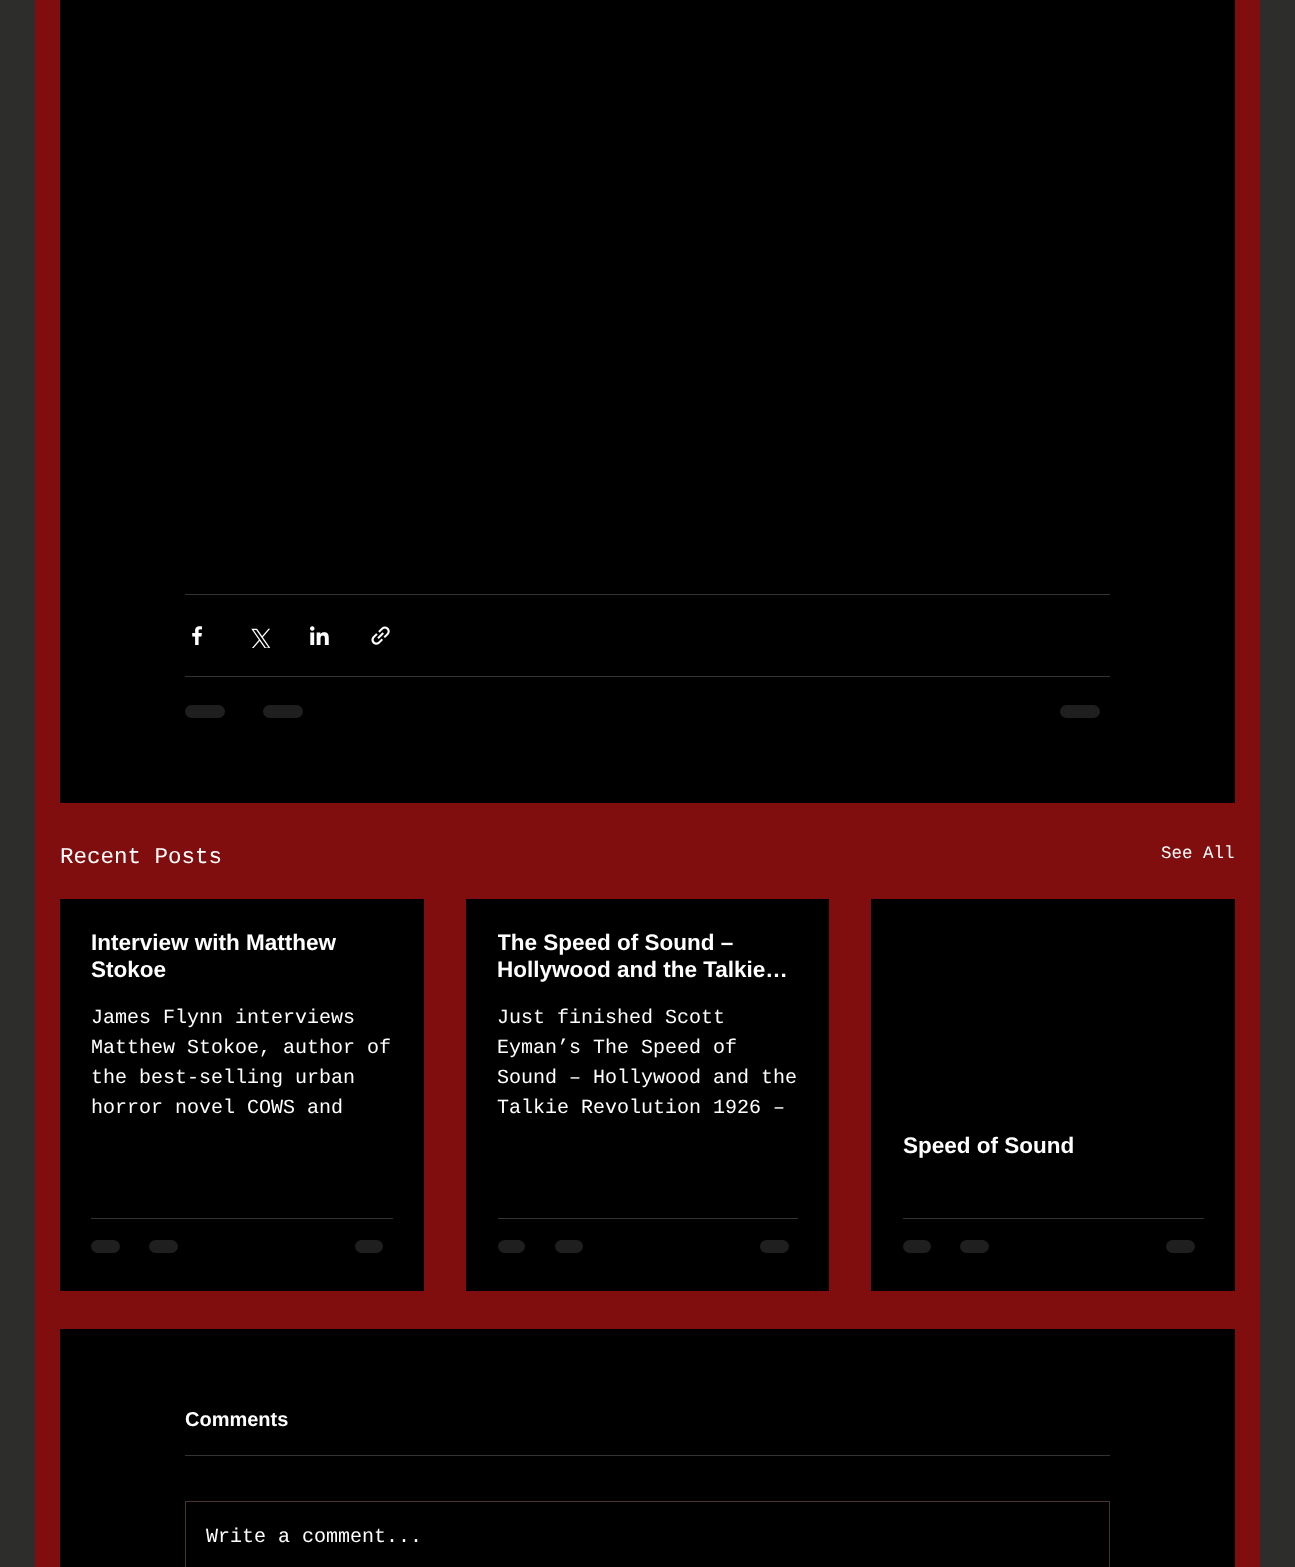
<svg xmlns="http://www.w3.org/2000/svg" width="1295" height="1567">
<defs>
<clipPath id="clip1"><rect x="498" y="930" width="300" height="53"/></clipPath>
</defs>
<rect width="100%" height="100%" fill="#2d2d2c"/>
<rect x="35" width="1225" height="1567" fill="#810e0e"/>
<rect x="60" width="1175" height="803" fill="#000"/>
<rect x="185" y="594" width="925" height="1" fill="#333"/>
<image x="192" y="626" width="10" height="19" href="media/1.png"/>
<image x="251" y="628" width="19" height="20" href="media/2.png"/>
<image x="310" y="626" width="19" height="19" href="media/3.png"/>
<image x="371" y="626" width="19" height="19" href="media/4.png"/>
<rect x="185" y="676" width="925" height="1" fill="#333"/>
<rect x="185" y="705" width="40" height="13" rx="6.5" fill="#1f1f1f"/>
<rect x="263" y="705" width="40" height="13" rx="6.5" fill="#1f1f1f"/>
<rect x="1060" y="705" width="40" height="13" rx="6.5" fill="#1f1f1f"/>
<text x="60" y="863" style="font-family:Liberation Mono;font-size:22.5px;fill:#fff">Recent Posts</text>
<text x="1161" y="858" style="font-family:Liberation Mono;font-size:17.5px;fill:#fff">See All</text>
<rect x="60" y="899" width="364" height="392" fill="#000"/>
<text x="91" y="950" style="font-family:Liberation Sans;font-size:22.5px;font-weight:bold;fill:#fff">Interview with Matthew</text>
<text x="91" y="977" style="font-family:Liberation Sans;font-size:22.5px;font-weight:bold;fill:#fff">Stokoe</text>
<text x="91" y="1023" style="font-family:Liberation Mono;font-size:20px;fill:#fff">James Flynn interviews</text>
<text x="91" y="1053" style="font-family:Liberation Mono;font-size:20px;fill:#fff">Matthew Stokoe, author of</text>
<text x="91" y="1083" style="font-family:Liberation Mono;font-size:20px;fill:#fff">the best-selling urban</text>
<text x="91" y="1113" style="font-family:Liberation Mono;font-size:20px;fill:#fff">horror novel COWS and</text>
<rect x="91" y="1218" width="302" height="1" fill="#333"/>
<rect x="91" y="1240" width="29" height="13" rx="6.5" fill="#1f1f1f"/>
<rect x="149" y="1240" width="29" height="13" rx="6.5" fill="#1f1f1f"/>
<rect x="355" y="1240" width="28" height="13" rx="6.5" fill="#1f1f1f"/>
<rect x="466" y="899" width="363" height="392" fill="#000"/>
<g clip-path="url(#clip1)">
<text x="497" y="950" style="font-family:Liberation Sans;font-size:22.5px;font-weight:bold;fill:#fff">The Speed of Sound –</text>
</g>
<text x="497" y="977" style="font-family:Liberation Sans;font-size:22.5px;font-weight:bold;fill:#fff">Hollywood and the Talkie…</text>
<text x="497" y="1023" style="font-family:Liberation Mono;font-size:20px;fill:#fff">Just finished Scott</text>
<text x="497" y="1053" style="font-family:Liberation Mono;font-size:20px;fill:#fff">Eyman’s The Speed of</text>
<text x="497" y="1083" style="font-family:Liberation Mono;font-size:20px;fill:#fff">Sound – Hollywood and the</text>
<text x="497" y="1113" style="font-family:Liberation Mono;font-size:20px;fill:#fff">Talkie Revolution 1926 –</text>
<rect x="498" y="1218" width="300" height="1" fill="#333"/>
<rect x="498" y="1240" width="27" height="13" rx="6.5" fill="#1f1f1f"/>
<rect x="555" y="1240" width="28" height="13" rx="6.5" fill="#1f1f1f"/>
<rect x="760" y="1240" width="29" height="13" rx="6.5" fill="#1f1f1f"/>
<rect x="871" y="899" width="364" height="392" fill="#000"/>
<text x="903" y="1153" style="font-family:Liberation Sans;font-size:22.5px;font-weight:bold;fill:#fff">Speed of Sound</text>
<rect x="903" y="1218" width="301" height="1" fill="#333"/>
<rect x="903" y="1240" width="28" height="13" rx="6.5" fill="#1f1f1f"/>
<rect x="960" y="1240" width="29" height="13" rx="6.5" fill="#1f1f1f"/>
<rect x="1166" y="1240" width="29" height="13" rx="6.5" fill="#1f1f1f"/>
<rect x="60" y="1329" width="1175" height="238" fill="#000"/>
<text x="185" y="1426" style="font-family:Liberation Sans;font-size:20px;font-weight:bold;fill:#fff">Comments</text>
<rect x="185" y="1455" width="925" height="1" fill="#333"/>
<rect x="185.5" y="1501.5" width="924" height="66" fill="none" stroke="#4c3333"/>
<text x="206" y="1542" style="font-family:Liberation Mono;font-size:20px;fill:#fff">Write a comment...</text>
</svg>
